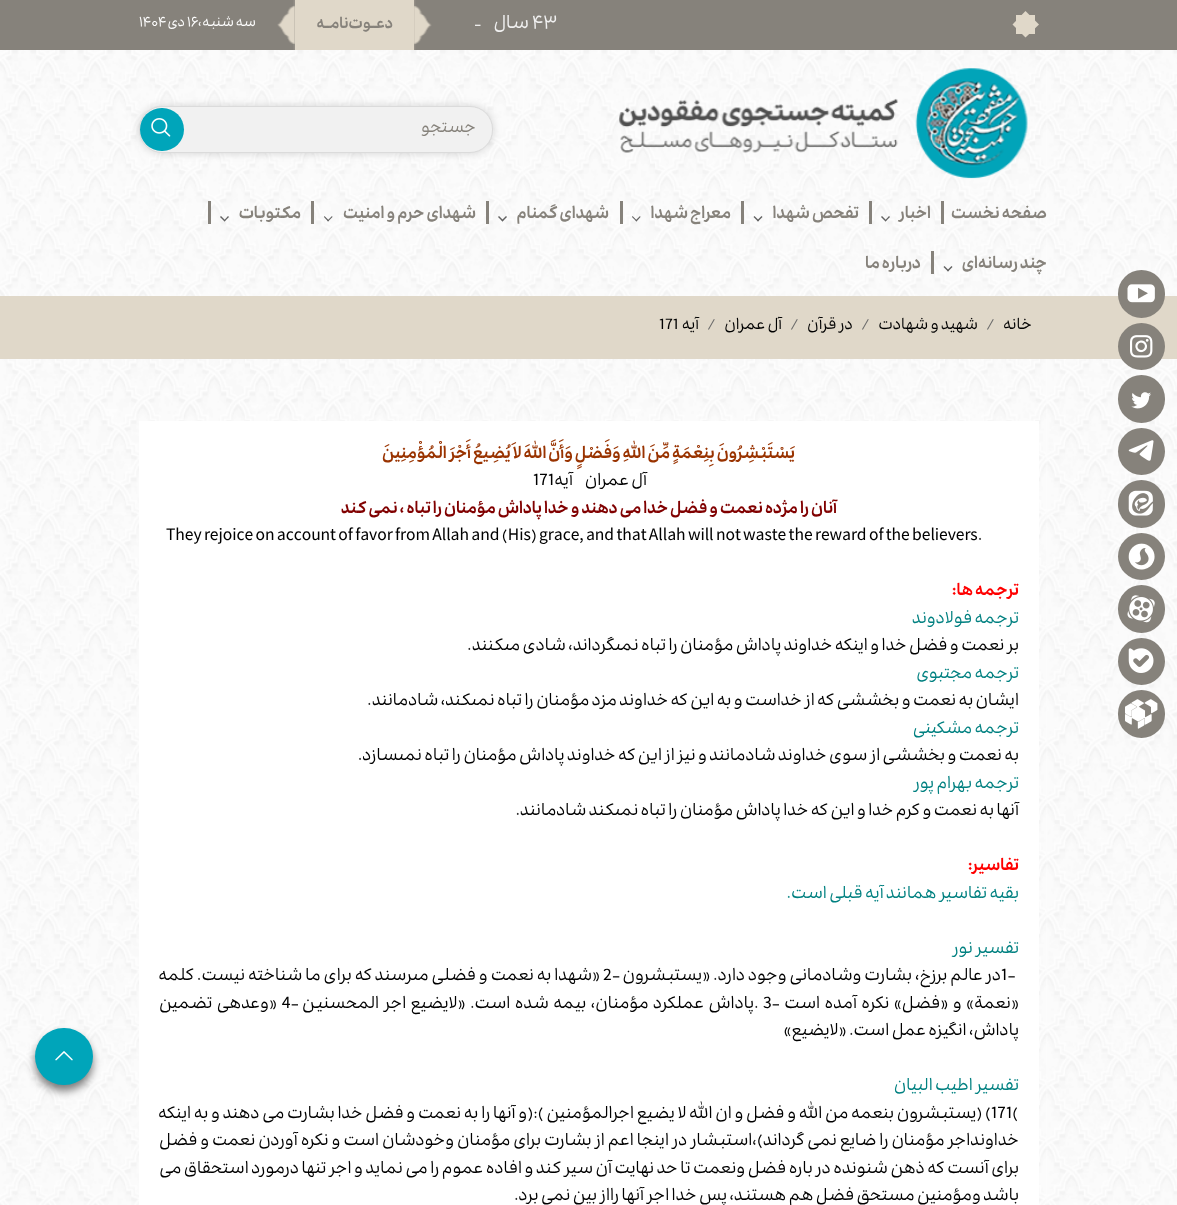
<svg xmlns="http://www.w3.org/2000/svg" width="1177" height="1205">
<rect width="100%" height="100%" fill="#fff"/>
<image x="0" y="50" width="1177" height="1155" href="media/1.png"/>
<rect width="1177" height="50" fill="#86827b"/>
<rect x="1016" y="15" width="19" height="19" fill="#e0d8c9"/>
<path d="M1025.5 11l13.5 13.5l-13.5 13l-13-13z" fill="#e0d8c9"/>
<text x="532" y="28" style="font-family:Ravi;font-size:19px;fill:#f1f1f1">۴۳</text>
<text x="529" y="28" style="font-family:Ravi;font-size:19px;direction:rtl;fill:#f1f1f1">سال</text>
<text x="474" y="28" style="font-family:Ravi;font-size:15px;fill:#fff">-</text>
<rect x="295" width="119" height="50" fill="#e0d8c9"/>
<image x="414" y="0" width="18" height="50" href="media/2.png"/>
<text x="393" y="28" style="font-family:Ravi;font-size:16.25px;font-weight:bold;direction:rtl;fill:#86827b">دعــوت‌نامــه</text>
<image x="277" y="0" width="18" height="50" href="media/3.png"/>
<text x="256" y="26" style="font-family:Ravi;font-size:14px;direction:rtl;fill:#fff">سه شنبه</text>
<text x="198" y="26" style="font-family:Ravi;font-size:14px;fill:#fff">،</text>
<text x="187" y="26" style="font-family:Ravi;font-size:14px;fill:#fff">۱۶</text>
<text x="185" y="26" style="font-family:Ravi;font-size:14px;direction:rtl;fill:#fff">دی</text>
<text x="139" y="26" style="font-family:Ravi;font-size:14px;fill:#fff">۱۴۰۴</text>
<image x="619" y="68" width="409" height="111" href="media/4.png"/>
<rect x="139" y="106" width="354" height="47" rx="23" fill="#00000029" filter="blur(4px)"/>
<rect x="139.5" y="106.5" width="353" height="46" rx="22.5" fill="#f1f1f1" stroke="#dbdbdb"/>
<text x="476" y="132" style="font-family:Ravi;font-size:17.5px;direction:rtl;fill:#86827b">جستجو</text>
<rect x="140" y="108" width="44" height="43" rx="21.5" fill="#00a5ba"/>
<image x="151" y="118" width="20" height="19" href="media/5.png"/>
<text x="1047" y="218" style="font-family:Ravi;font-size:17.5px;font-weight:bold;direction:rtl;fill:#86827b">صفحه نخست</text>
<rect x="941" y="201" width="3" height="23" fill="#86827b"/>
<text x="931" y="218" style="font-family:Ravi;font-size:17.5px;font-weight:bold;direction:rtl;fill:#86827b">اخبار</text>
<path d="M889 216l1 1l-4.5 4.5l-.5-1z" fill="#616161"/>
<path d="M882 216l4.5 4.5l-1 1l-4.5-4.5z" fill="#616161"/>
<rect x="869" y="201" width="3" height="23" fill="#86827b"/>
<text x="859" y="218" style="font-family:Ravi;font-size:17.5px;font-weight:bold;direction:rtl;fill:#86827b">تفحص شهدا</text>
<path d="M761.5 216l1 1l-4.5 4.5l-1-1z" fill="#616161"/>
<path d="M754.5 216l4.5 4.5l-1 1l-4.5-4.5z" fill="#616161"/>
<rect x="741" y="201" width="3" height="23" fill="#86827b"/>
<text x="731" y="218" style="font-family:Ravi;font-size:17.5px;font-weight:bold;direction:rtl;fill:#86827b">معراج شهدا</text>
<path d="M640 216l.5 1l-4 4.5l-1-1z" fill="#616161"/>
<path d="M632.5 216l4.5 4.5l-.5 1l-4.5-4.5z" fill="#616161"/>
<rect x="620" y="201" width="3" height="23" fill="#86827b"/>
<text x="609" y="218" style="font-family:Ravi;font-size:17.5px;font-weight:bold;direction:rtl;fill:#86827b">شهدای گمنام</text>
<path d="M506 216l1 1l-4.5 4.5l-1-1z" fill="#616161"/>
<path d="M499 216l4.5 4.5l-1 1l-4.5-4.5z" fill="#616161"/>
<rect x="486" y="201" width="3" height="23" fill="#86827b"/>
<text x="476" y="218" style="font-family:Ravi;font-size:17.5px;font-weight:bold;direction:rtl;fill:#86827b">شهدای حرم و امنیت</text>
<path d="M332 216l.5 1l-4.5 4.5l-.5-1z" fill="#616161"/>
<path d="M324.5 216l4.5 4.5l-1 1l-4-4.5z" fill="#616161"/>
<rect x="311" y="201" width="3" height="23" fill="#86827b"/>
<text x="301" y="218" style="font-family:Ravi;font-size:17.5px;font-weight:bold;direction:rtl;fill:#86827b">مکتوبات</text>
<path d="M228 216l1 1l-4.5 4.5l-.5-1z" fill="#616161"/>
<path d="M221 216l4.5 4.5l-1 1l-4.5-4.5z" fill="#616161"/>
<rect x="208" y="201" width="3" height="23" fill="#86827b"/>
<text x="1047" y="268" style="font-family:Ravi;font-size:17.5px;font-weight:bold;direction:rtl;fill:#86827b">چند رسانه‌ای</text>
<path d="M951.5 266l1 1l-4.5 4.5l-1-1z" fill="#616161"/>
<path d="M944.5 266l4.5 4.5l-1 1l-4.5-4.5z" fill="#616161"/>
<rect x="931" y="251" width="3" height="23" fill="#86827b"/>
<text x="921" y="268" style="font-family:Ravi;font-size:17.5px;font-weight:bold;direction:rtl;fill:#86827b">درباره ما</text>
<rect y="296" width="1177" height="63" fill="#e0d8c9"/>
<rect x="1118" y="270" width="47" height="48" rx="23.5" fill="#86827b"/>
<image x="1127" y="284" width="28" height="19" href="media/6.png"/>
<circle cx="1141.5" cy="346.5" r="23.5" fill="#86827b"/>
<image x="1130" y="335" width="23" height="23" href="media/7.png"/>
<rect x="1118" y="375" width="47" height="48" rx="23.5" fill="#86827b"/>
<image x="1131" y="392" width="20" height="17" href="media/8.png"/>
<circle cx="1141.5" cy="451.5" r="23.5" fill="#86827b"/>
<image x="1128" y="440" width="26" height="21" href="media/9.png"/>
<rect x="1118" y="480" width="47" height="48" rx="23.5" fill="#86827b"/>
<image x="1128" y="490" width="25" height="26" href="media/10.png"/>
<circle cx="1141.5" cy="556.5" r="23.5" fill="#86827b"/>
<image x="1128" y="543" width="27" height="27" href="media/11.png"/>
<rect x="1118" y="585" width="47" height="48" rx="23.5" fill="#86827b"/>
<image x="1127" y="595" width="28" height="28" href="media/12.png"/>
<circle cx="1141.5" cy="661.5" r="23.5" fill="#86827b"/>
<image x="1128" y="648" width="26" height="25" href="media/13.png"/>
<rect x="1118" y="690" width="47" height="48" rx="23.5" fill="#86827b"/>
<image x="1125" y="699" width="33" height="30" href="media/14.png"/>
<text x="1032" y="329" style="font-family:Ravi;font-size:16.25px;direction:rtl;fill:#000">خانه</text>
<text x="986" y="329" style="font-family:Ravi;font-size:15px;fill:#6a6a6a">/</text>
<text x="978" y="329" style="font-family:Ravi;font-size:16.25px;direction:rtl;fill:#000">شهید و شهادت</text>
<text x="861" y="329" style="font-family:Ravi;font-size:15px;fill:#6a6a6a">/</text>
<text x="853" y="329" style="font-family:Ravi;font-size:16.25px;direction:rtl;fill:#000">در قرآن</text>
<text x="790" y="329" style="font-family:Ravi;font-size:15px;fill:#6a6a6a">/</text>
<text x="782" y="329" style="font-family:Ravi;font-size:16.25px;direction:rtl;fill:#000">آل عمران</text>
<text x="707" y="329" style="font-family:Ravi;font-size:15px;fill:#6a6a6a">/</text>
<text x="699" y="329" style="font-family:Ravi;font-size:16.25px;direction:rtl;fill:#000">آیه</text>
<text x="659" y="329" style="font-family:Ravi;font-size:16.25px;fill:#000">171</text>
<rect x="139" y="421" width="900" height="784" fill="#fff"/>
<text x="795" y="458" style="font-family:Ravi;font-size:17.5px;font-weight:bold;direction:rtl;fill:#930">یَسْتَبْشِرُونَ بِنِعْمَةٍ مِّنَ اللّهِ وَفَضْلٍ وَأَنَّ اللّهَ لاَ یُضِیعُ أَجْرَ الْمُؤْمِنِینَ</text>
<text x="647" y="485" style="font-family:Ravi;font-size:17.5px;direction:rtl;fill:#000">آل عمران</text>
<text x="573" y="485" style="font-family:Ravi;font-size:17.5px;direction:rtl;fill:#000">آیه</text>
<text x="533" y="485" style="font-family:Ravi;font-size:17.5px;fill:#000">171</text>
<text x="837" y="513" style="font-family:Ravi;font-size:17.5px;font-weight:bold;direction:rtl;fill:#800000">آنان را مژده نعمت و فضل خدا می دهند و خدا پاداش مؤمنان را تباه ، نمی کند</text>
<text x="166" y="540" style="font-family:Ravi;font-size:17.5px;fill:#000">They rejoice on account of favor from Allah and (His) grace, and that Allah will not waste the reward of the believers.</text>
<text x="1019" y="595" style="font-family:Ravi;font-size:17.5px;font-weight:bold;direction:rtl;fill:#f00">ترجمه ها:</text>
<text x="1019" y="623" style="font-family:Ravi;font-size:17.5px;direction:rtl;fill:#008080">ترجمه فولادوند</text>
<text x="1019" y="650" style="font-family:Ravi;font-size:17.5px;direction:rtl;fill:#000">بر نعمت و فضل خدا و اینکه خداوند پاداش مؤمنان را تباه نمىگرداند، شادى مىکنند</text>
<text x="467" y="650" style="font-family:Ravi;font-size:17.5px;fill:#000">.</text>
<text x="1019" y="678" style="font-family:Ravi;font-size:17.5px;direction:rtl;fill:#008080">ترجمه مجتبوی</text>
<text x="1019" y="705" style="font-family:Ravi;font-size:17.5px;direction:rtl;fill:#000">ایشان به نعمت و بخششى که از خداست و به این که خداوند مزد مؤمنان را تباه نمىکند، شادمانند</text>
<text x="367" y="705" style="font-family:Ravi;font-size:17.5px;fill:#000">.</text>
<text x="1019" y="733" style="font-family:Ravi;font-size:17.5px;direction:rtl;fill:#008080">ترجمه مشکینی</text>
<text x="1019" y="760" style="font-family:Ravi;font-size:17.5px;direction:rtl;fill:#000">به نعمت و بخششى از سوى خداوند شادمانند و نیز از این که خداوند پاداش مؤمنان را تباه نمىسازد.</text>
<text x="1019" y="788" style="font-family:Ravi;font-size:17.5px;direction:rtl;fill:#008080">ترجمه بهرام پور</text>
<text x="1019" y="815" style="font-family:Ravi;font-size:17.5px;direction:rtl;fill:#000">آنها به نعمت و کرم خدا و این که خدا پاداش مؤمنان را تباه نمىکند شادمانند.</text>
<text x="1019" y="870" style="font-family:Ravi;font-size:17.5px;font-weight:bold;direction:rtl;fill:#f00">تفاسیر:</text>
<text x="1019" y="898" style="font-family:Ravi;font-size:17.5px;direction:rtl;fill:#008080">بقیه تفاسیر همانند آیه قبلی است.</text>
<text x="1019" y="953" style="font-family:Ravi;font-size:17.5px;direction:rtl;fill:#008080">تفسیر نور</text>
<text x="1001" y="980" style="font-family:Ravi;font-size:17.5px;fill:#000">1-</text>
<text x="1001" y="980" word-spacing="0.5" style="font-family:Ravi;font-size:17.5px;direction:rtl;fill:#000">در عالم برزخ، بشارت وشادمانى وجود دارد. «یستبشرون</text>
<text x="592" y="980" word-spacing="0.5" style="font-family:Ravi;font-size:17.5px;fill:#000">» 2-</text>
<text x="592" y="980" word-spacing="0.5" style="font-family:Ravi;font-size:17.5px;direction:rtl;fill:#000">شهدا به نعمت و فضلى مىرسند که براى ما شناخته نیست. کلمه</text>
<text x="1019" y="1008" word-spacing="2" style="font-family:Ravi;font-size:17.5px;direction:rtl;fill:#000">«نعمة» و «فضل» نکره آمده است</text>
<text x="754" y="1008" word-spacing="2" style="font-family:Ravi;font-size:17.5px;fill:#000">. 3-</text>
<text x="754" y="1008" word-spacing="2" style="font-family:Ravi;font-size:17.5px;direction:rtl;fill:#000">پاداش عملکرد مؤمنان، بیمه شده است. «لایضیع اجر المحسنین</text>
<text x="269" y="1008" word-spacing="2" style="font-family:Ravi;font-size:17.5px;fill:#000">» 4-</text>
<text x="269" y="1008" word-spacing="2" style="font-family:Ravi;font-size:17.5px;direction:rtl;fill:#000">وعدهى تضمین</text>
<text x="1019" y="1035" style="font-family:Ravi;font-size:17.5px;direction:rtl;fill:#000">پاداش، انگیزه عمل است. «لایضیع»</text>
<text x="1019" y="1090" style="font-family:Ravi;font-size:17.5px;direction:rtl;fill:#008080">تفسیر اطیب البیان</text>
<text x="991" y="1118" style="font-family:Ravi;font-size:17.5px;fill:#000">171(</text>
<text x="991" y="1118" word-spacing="0.3" style="font-family:Ravi;font-size:17.5px;direction:rtl;fill:#000">) (یستبشرون بنعمه من الله و فضل و ان الله لا یضیع اجرالمؤمنین ):(و آنها را به نعمت و فضل خدا بشارت می دهند و به اینکه</text>
<text x="1019" y="1145" word-spacing="0.5" style="font-family:Ravi;font-size:17.5px;direction:rtl;fill:#000">خداونداجر مؤمنان را ضایع نمی گرداند)،استبشار در اینجا اعم از بشارت برای مؤمنان وخودشان است و نکره آوردن نعمت و فضل</text>
<text x="1019" y="1173" word-spacing="0.15" style="font-family:Ravi;font-size:17.5px;direction:rtl;fill:#000">برای آنست که ذهن شنونده در باره فضل ونعمت تا حد نهایت آن سیر کند و افاده عموم را می نماید و اجر تنها درمورد استحقاق می</text>
<text x="1019" y="1200" style="font-family:Ravi;font-size:17.5px;direction:rtl;fill:#000">باشد ومؤمنین مستحق فضل هم هستند، پس خدا اجر آنها رااز بین نمی برد</text>
<text x="514" y="1200" style="font-family:Ravi;font-size:17.5px;fill:#000">.</text>
<rect x="35" y="1034" width="58" height="57" rx="28.5" fill="#00000080" filter="blur(4px)"/>
<rect x="35" y="1028" width="58" height="57" rx="28.5" fill="#00a5ba"/>
<image x="55" y="1051" width="18" height="10" href="media/15.png"/>
</svg>
